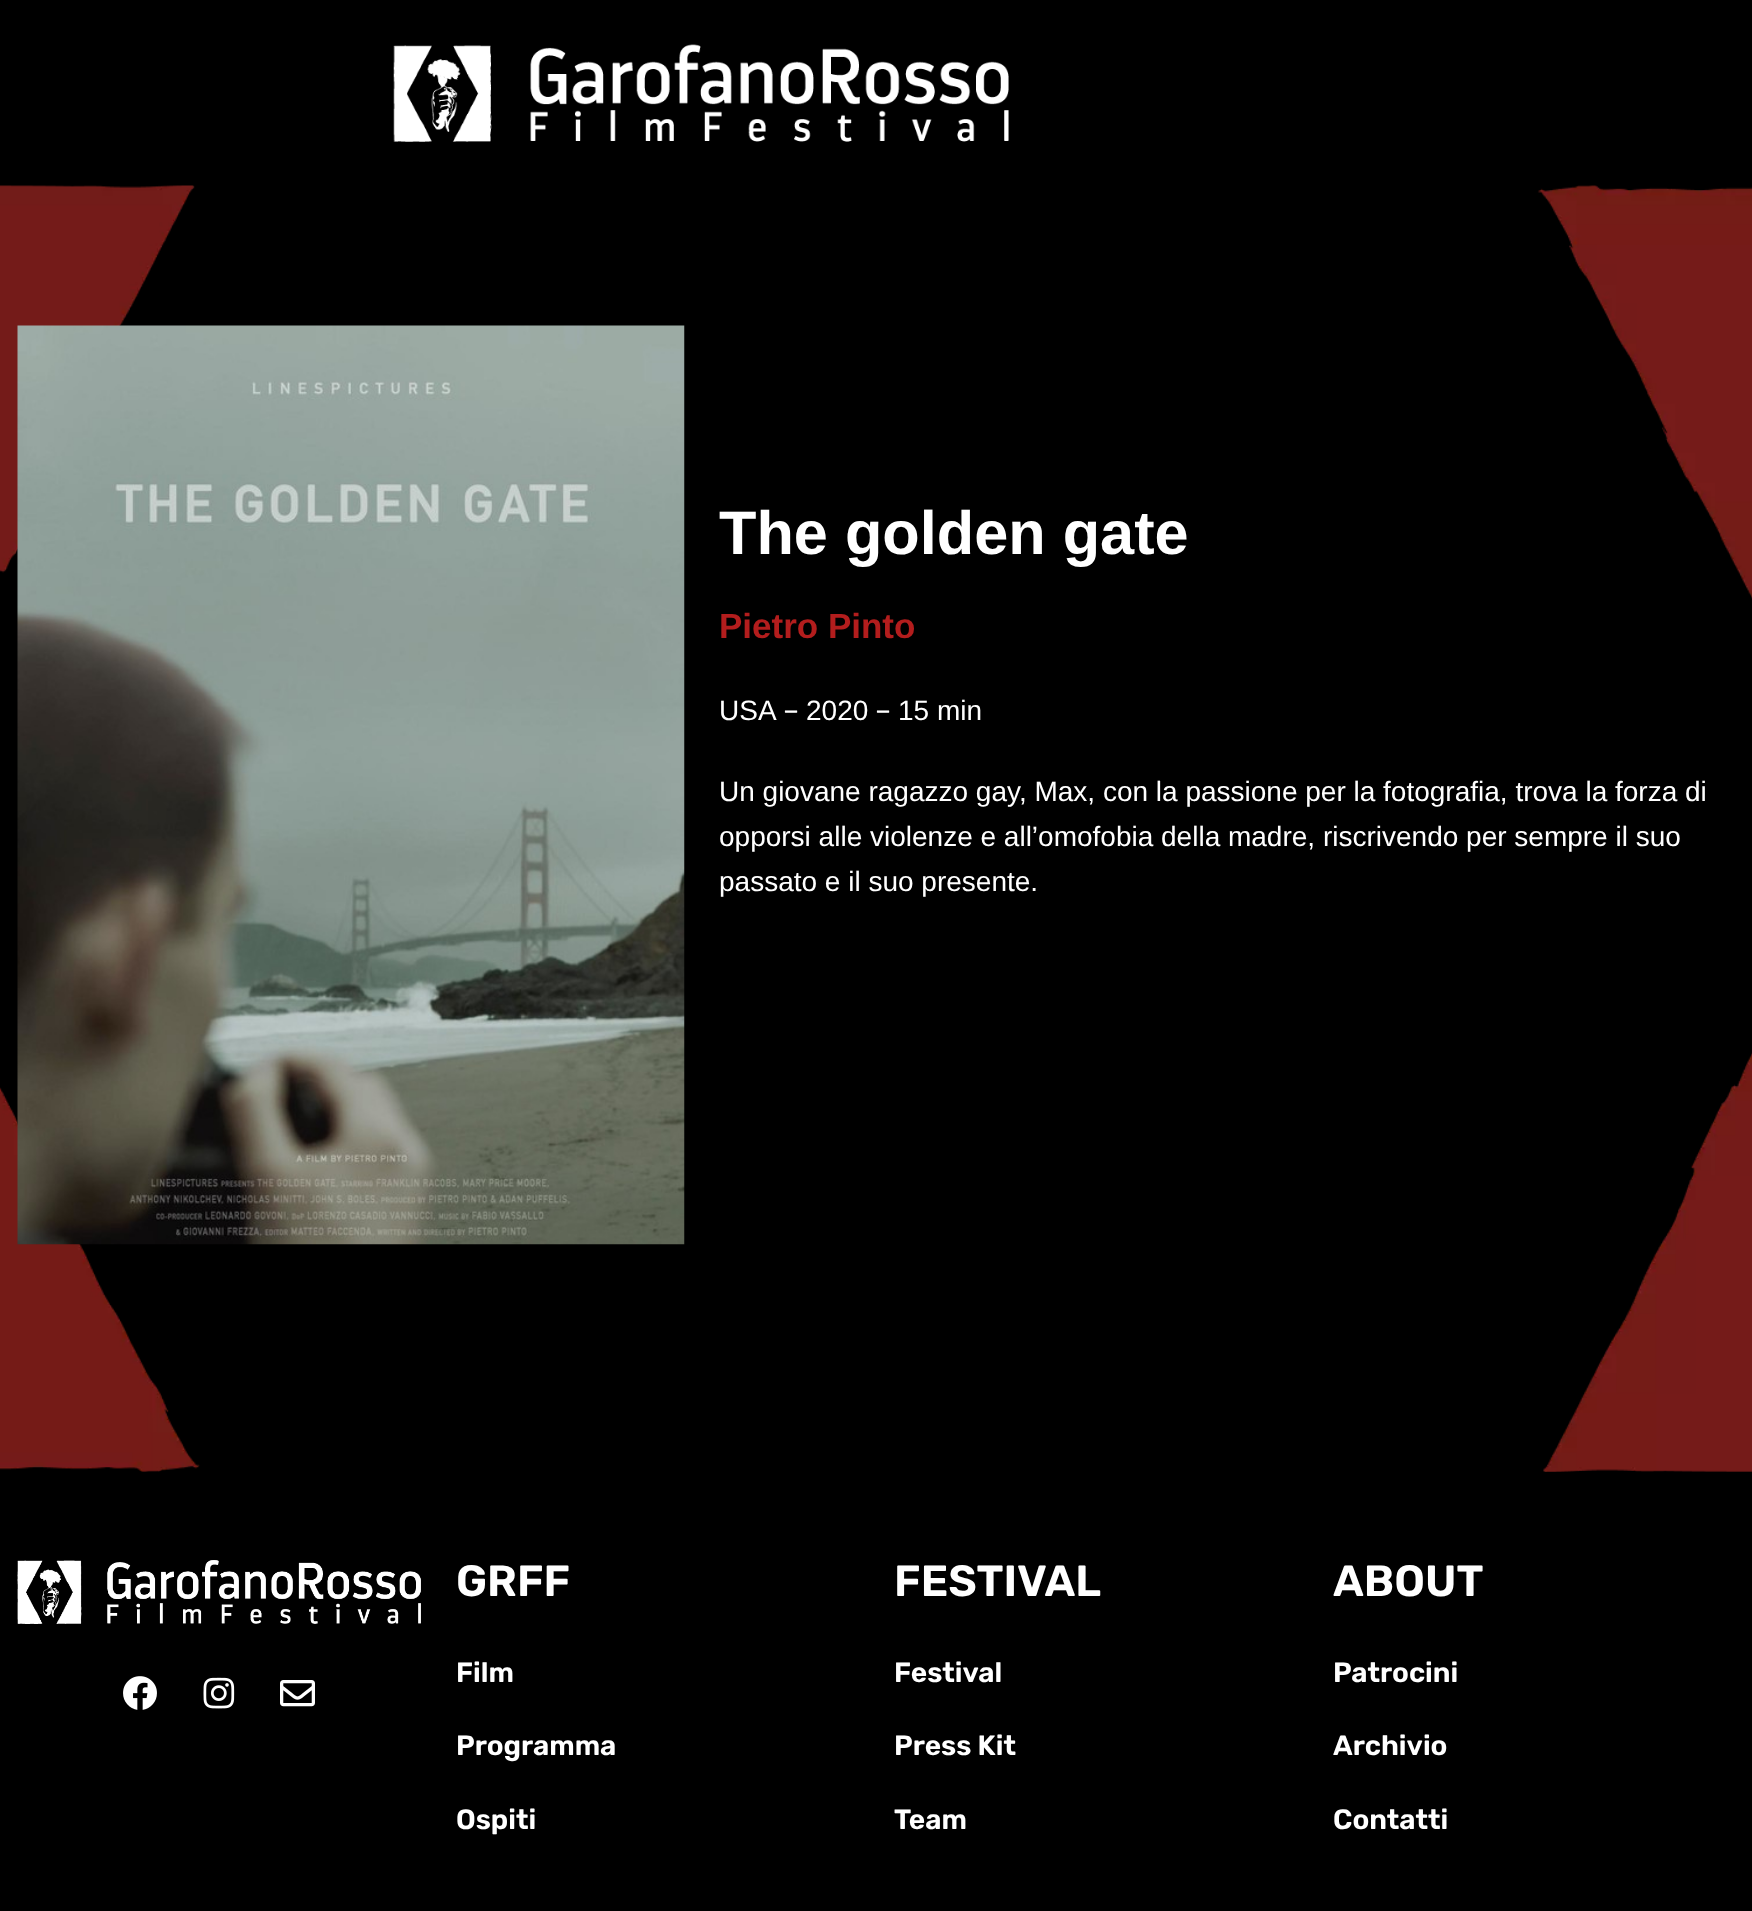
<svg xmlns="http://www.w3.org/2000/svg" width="1752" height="1911">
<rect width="100%" height="100%" fill="#000"/>
<image x="393" y="44" width="616" height="98" href="media/1.png"/>
<image x="0" y="185" width="1752" height="1287" href="media/2.png"/>
<image x="17" y="325" width="668" height="920" href="media/3.png"/>
<text x="719" y="554" style="font-family:Liberation Sans;font-size:61.25px;font-weight:bold;fill:#fff">The golden gate</text>
<text x="719" y="638" style="font-family:Liberation Sans;font-size:35px;font-weight:bold;fill:#b31d1d">Pietro Pinto</text>
<text x="719" y="720" style="font-family:Liberation Sans;font-size:28px;fill:#fff">USA</text>
<text x="783" y="720" style="font-family:Rubik;font-size:28px;fill:#fff">–</text>
<text x="806" y="720" style="font-family:Liberation Sans;font-size:28px;fill:#fff">2020</text>
<text x="875" y="720" style="font-family:Rubik;font-size:28px;fill:#fff">–</text>
<text x="898" y="720" style="font-family:Liberation Sans;font-size:28px;fill:#fff">15 min</text>
<text x="719" y="801" style="font-family:Liberation Sans;font-size:28px;fill:#fff">Un giovane ragazzo gay, Max, con la passione per la fotografia, trova la forza di</text>
<text x="719" y="846" style="font-family:Liberation Sans;font-size:28px;fill:#fff">opporsi alle violenze e all’omofobia della madre, riscrivendo per sempre il suo</text>
<text x="719" y="891" style="font-family:Liberation Sans;font-size:28px;fill:#fff">passato e il suo presente.</text>
<image x="17" y="1560" width="404" height="64" href="media/4.png"/>
<image x="123" y="1676" width="34" height="34" href="media/5.png"/>
<image x="203" y="1677" width="32" height="32" href="media/6.png"/>
<image x="280" y="1680" width="35" height="27" href="media/7.png"/>
<text x="456" y="1596" style="font-family:Rubik;font-size:43.75px;font-weight:600;fill:#fff">GRFF</text>
<text x="456" y="1682" style="font-family:Rubik;font-size:28px;font-weight:600;fill:#fff">Film</text>
<text x="456" y="1755" style="font-family:Rubik;font-size:28px;font-weight:600;fill:#fff">Programma</text>
<text x="456" y="1829" style="font-family:Rubik;font-size:28px;font-weight:600;fill:#fff">Ospiti</text>
<text x="894" y="1596" style="font-family:Rubik;font-size:43.75px;font-weight:600;fill:#fff">FESTIVAL</text>
<text x="894" y="1682" style="font-family:Rubik;font-size:28px;font-weight:600;fill:#fff">Festival</text>
<text x="894" y="1755" style="font-family:Rubik;font-size:28px;font-weight:600;fill:#fff">Press Kit</text>
<text x="894" y="1829" style="font-family:Rubik;font-size:28px;font-weight:600;fill:#fff">Team</text>
<text x="1333" y="1596" style="font-family:Rubik;font-size:43.75px;font-weight:600;fill:#fff">ABOUT</text>
<text x="1333" y="1682" style="font-family:Rubik;font-size:28px;font-weight:600;fill:#fff">Patrocini</text>
<text x="1333" y="1755" style="font-family:Rubik;font-size:28px;font-weight:600;fill:#fff">Archivio</text>
<text x="1333" y="1829" style="font-family:Rubik;font-size:28px;font-weight:600;fill:#fff">Contatti</text>
</svg>
